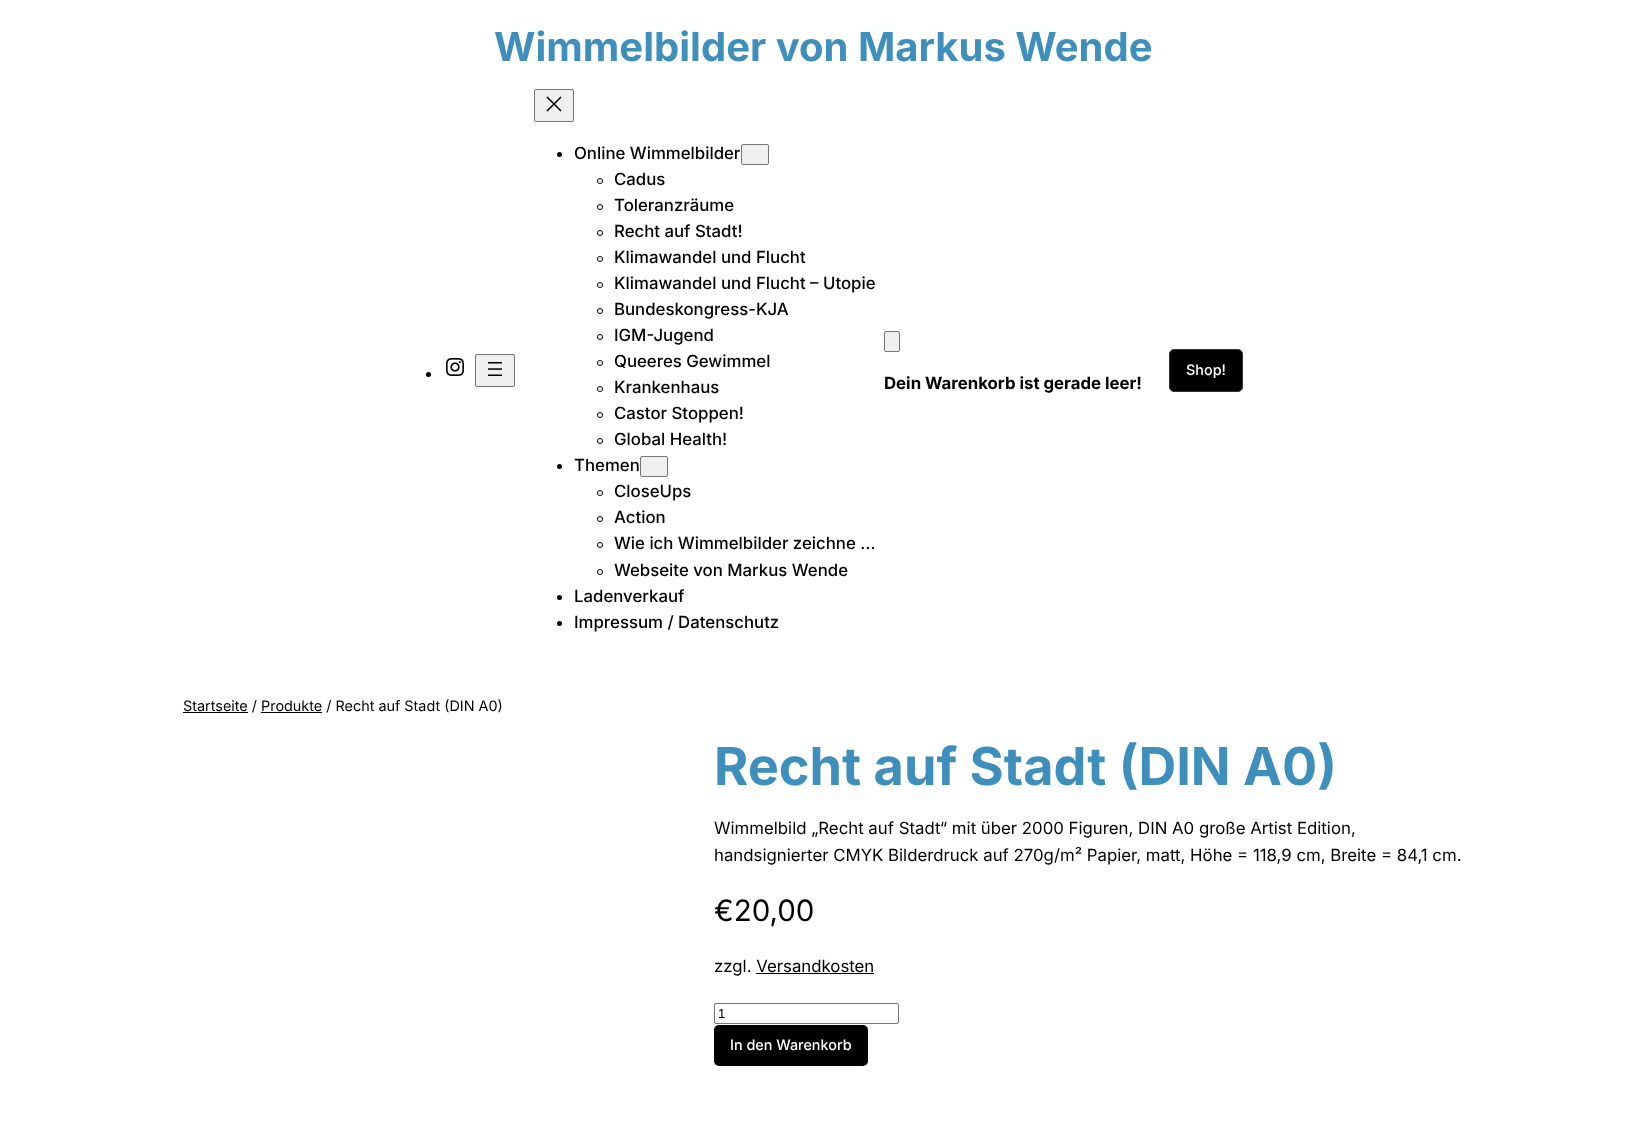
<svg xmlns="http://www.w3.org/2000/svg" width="1646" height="1142">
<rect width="100%" height="100%" fill="#fff"/>
<text x="494" y="61" style="font-family:Inter;font-size:40px;font-weight:bold;fill:#3f8fbd">Wimmelbilder von Markus Wende</text>
<circle cx="428.5" cy="374.5" r="2.5" fill="#000"/>
<image x="446" y="358" width="18" height="18" href="media/1.png"/>
<rect x="475.5" y="354.5" width="39" height="32" rx="1.5" fill="#efefef" stroke="#767676"/>
<image x="488" y="362" width="14" height="14" href="media/2.png"/>
<rect x="534.5" y="89.5" width="39" height="32" rx="1.5" fill="#efefef" stroke="#767676"/>
<image x="546" y="96" width="16" height="16" href="media/3.png"/>
<circle cx="559.5" cy="154.5" r="2.5" fill="#000"/>
<text x="574" y="159" style="font-family:Inter;font-size:16.8px;font-weight:500;fill:#000">Online Wimmelbilder</text>
<rect x="741.5" y="144.5" width="27" height="20" rx="1.5" fill="#efefef" stroke="#767676"/>
<circle cx="600" cy="181" r="2.5" fill="none" stroke="#000"/>
<text x="614" y="185" style="font-family:Inter;font-size:16.8px;font-weight:500;fill:#000">Cadus</text>
<circle cx="600" cy="207" r="2.5" fill="none" stroke="#000"/>
<text x="614" y="211" style="font-family:Inter;font-size:16.8px;font-weight:500;fill:#000">Toleranzräume</text>
<circle cx="600" cy="233" r="2.5" fill="none" stroke="#000"/>
<text x="614" y="237" style="font-family:Inter;font-size:16.8px;font-weight:500;fill:#000">Recht auf Stadt!</text>
<circle cx="600" cy="259" r="2.5" fill="none" stroke="#000"/>
<text x="614" y="263" style="font-family:Inter;font-size:16.8px;font-weight:500;fill:#000">Klimawandel und Flucht</text>
<circle cx="600" cy="285" r="2.5" fill="none" stroke="#000"/>
<text x="614" y="289" style="font-family:Inter;font-size:16.8px;font-weight:500;fill:#000">Klimawandel und Flucht – Utopie</text>
<circle cx="600" cy="311" r="2.5" fill="none" stroke="#000"/>
<text x="614" y="315" style="font-family:Inter;font-size:16.8px;font-weight:500;fill:#000">Bundeskongress-KJA</text>
<circle cx="600" cy="337" r="2.5" fill="none" stroke="#000"/>
<text x="614" y="341" style="font-family:Inter;font-size:16.8px;font-weight:500;fill:#000">IGM-Jugend</text>
<circle cx="600" cy="363" r="2.5" fill="none" stroke="#000"/>
<text x="614" y="367" style="font-family:Inter;font-size:16.8px;font-weight:500;fill:#000">Queeres Gewimmel</text>
<circle cx="600" cy="389" r="2.5" fill="none" stroke="#000"/>
<text x="614" y="393" style="font-family:Inter;font-size:16.8px;font-weight:500;fill:#000">Krankenhaus</text>
<circle cx="600" cy="415" r="2.5" fill="none" stroke="#000"/>
<text x="614" y="419" style="font-family:Inter;font-size:16.8px;font-weight:500;fill:#000">Castor Stoppen!</text>
<circle cx="600" cy="441" r="2.5" fill="none" stroke="#000"/>
<text x="614" y="445" style="font-family:Inter;font-size:16.8px;font-weight:500;fill:#000">Global Health!</text>
<circle cx="559.5" cy="466.5" r="2.5" fill="#000"/>
<text x="574" y="471" style="font-family:Inter;font-size:16.8px;font-weight:500;fill:#000">Themen</text>
<rect x="640.5" y="456.5" width="27" height="20" rx="1.5" fill="#efefef" stroke="#767676"/>
<circle cx="600" cy="493" r="2.5" fill="none" stroke="#000"/>
<text x="614" y="497" style="font-family:Inter;font-size:16.8px;font-weight:500;fill:#000">CloseUps</text>
<circle cx="600" cy="519" r="2.5" fill="none" stroke="#000"/>
<text x="614" y="523" style="font-family:Inter;font-size:16.8px;font-weight:500;fill:#000">Action</text>
<circle cx="600" cy="545" r="2.5" fill="none" stroke="#000"/>
<text x="614" y="549" style="font-family:Inter;font-size:16.8px;font-weight:500;fill:#000">Wie ich Wimmelbilder zeichne …</text>
<circle cx="600" cy="572" r="2.5" fill="none" stroke="#000"/>
<text x="614" y="576" style="font-family:Inter;font-size:16.8px;font-weight:500;fill:#000">Webseite von Markus Wende</text>
<circle cx="559.5" cy="597.5" r="2.5" fill="#000"/>
<text x="574" y="602" style="font-family:Inter;font-size:16.8px;font-weight:500;fill:#000">Ladenverkauf</text>
<circle cx="559.5" cy="623.5" r="2.5" fill="#000"/>
<text x="574" y="628" style="font-family:Inter;font-size:16.8px;font-weight:500;fill:#000">Impressum / Datenschutz</text>
<rect x="884.5" y="331.5" width="15" height="20" rx="1.5" fill="#efefef" stroke="#767676"/>
<text x="884" y="389" style="font-family:Inter;font-size:16.8px;font-weight:bold;fill:#000">Dein Warenkorb ist gerade leer!</text>
<rect x="1169.5" y="349.5" width="73" height="42" rx="4.5" fill="#000" stroke="#333"/>
<text x="1186" y="375" style="font-family:Inter;font-size:14.4px;font-weight:500;fill:#fff">Shop!</text>
<rect x="183" y="712" width="65" height="1" fill="#000"/>
<text x="183" y="711" style="font-family:Inter;font-size:14.4px;fill:#000">Startseite / Produkte / Recht auf Stadt (DIN A0)</text>
<rect x="261" y="712" width="61" height="1" fill="#000"/>
<text x="714" y="785" style="font-family:Inter;font-size:52.25px;font-weight:bold;fill:#3f8fbd">Recht auf Stadt (DIN A0)</text>
<text x="714" y="834" style="font-family:Inter;font-size:16.8px;fill:#000">Wimmelbild „Recht auf Stadt“ mit über 2000 Figuren, DIN A0 große Artist Edition,</text>
<text x="714" y="861" style="font-family:Inter;font-size:16.8px;fill:#000">handsignierter CMYK Bilderdruck auf 270g/m² Papier, matt, Höhe = 118,9 cm, Breite = 84,1 cm.</text>
<text x="714" y="921" style="font-family:Inter;font-size:29.5px;fill:#000">€20,00</text>
<text x="714" y="972" style="font-family:Inter;font-size:16.8px;fill:#000">zzgl. Versandkosten</text>
<rect x="756" y="973" width="118" height="1" fill="#000"/>
<rect x="714.5" y="1003.5" width="184" height="20" rx="1.5" fill="none" stroke="#767676"/>
<text x="718" y="1018" style="font-family:Liberation Sans;font-size:13px;fill:#000">1</text>
<rect x="714" y="1025" width="154" height="41" rx="5" fill="#000"/>
<text x="730" y="1050" style="font-family:Inter;font-size:14.4px;font-weight:500;fill:#fff">In den Warenkorb</text>
</svg>
